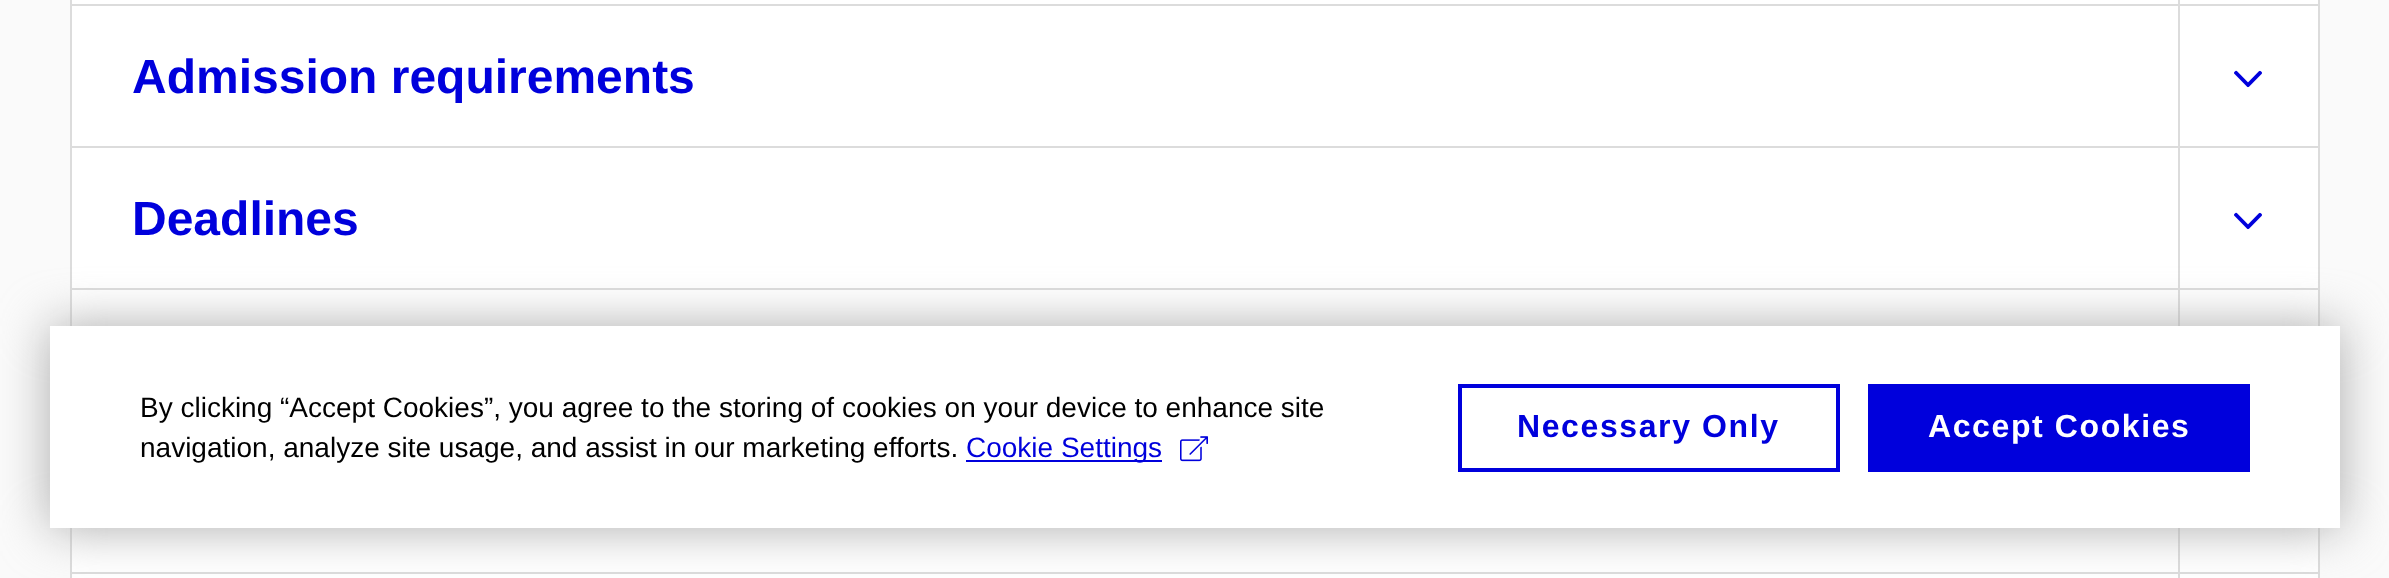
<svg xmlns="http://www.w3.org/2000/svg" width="2389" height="578">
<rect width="100%" height="100%" fill="#fafafa"/>
<rect x="72" width="2246" height="578" fill="#fff"/>
<rect x="2318" width="2" height="578" fill="#dcdcdc"/>
<rect x="70" width="2" height="578" fill="#dcdcdc"/>
<rect x="72" y="4" width="2246" height="2" fill="#dcdcdc"/>
<rect x="72" y="146" width="2246" height="2" fill="#dcdcdc"/>
<rect x="72" y="288" width="2246" height="2" fill="#dcdcdc"/>
<rect x="2178" width="2" height="326" fill="#dcdcdc"/>
<text x="132" y="93" style="font-family:Liberation Sans;font-size:48px;font-weight:bold;fill:#0000dc">Admission requirements</text>
<image x="2234" y="70" width="28" height="18" href="media/1.png"/>
<text x="132" y="235" style="font-family:Liberation Sans;font-size:48px;font-weight:bold;fill:#0000dc">Deadlines</text>
<image x="2234" y="212" width="28" height="18" href="media/1.png"/>
<rect x="72" y="572" width="2246" height="2" fill="#dcdcdc"/>
<rect x="2178" y="528" width="2" height="50" fill="#dcdcdc"/>
<rect x="50" y="326" width="2290" height="202" fill="#aaa" filter="blur(25px)"/>
<rect x="50" y="326" width="2290" height="202" fill="#fff"/>
<text x="140" y="417" style="font-family:Liberation Sans;font-size:28px;fill:#000">By clicking “Accept Cookies”, you agree to the storing of cookies on your device to enhance site</text>
<text x="140" y="457" style="font-family:Liberation Sans;font-size:28px;fill:#000">navigation, analyze site usage, and assist in our marketing efforts.</text>
<rect x="966" y="460" width="196" height="2" fill="#0000dc"/>
<text x="966" y="457" style="font-family:Liberation Sans;font-size:28px;fill:#0000dc">Cookie Settings</text>
<image x="1180" y="436" width="28" height="26" href="media/2.png"/>
<rect x="1460" y="386" width="378" height="84" fill="none" stroke="#0000dc" stroke-width="4"/>
<text x="1517" y="437" style="font-family:Liberation Sans;font-size:32px;font-weight:bold;letter-spacing:1.6px;fill:#0000dc">Necessary Only</text>
<rect x="1868" y="384" width="382" height="88" fill="#0000dc"/>
<text x="1928" y="437" style="font-family:Liberation Sans;font-size:32px;font-weight:bold;letter-spacing:1.6px;fill:#fff">Accept Cookies</text>
</svg>
